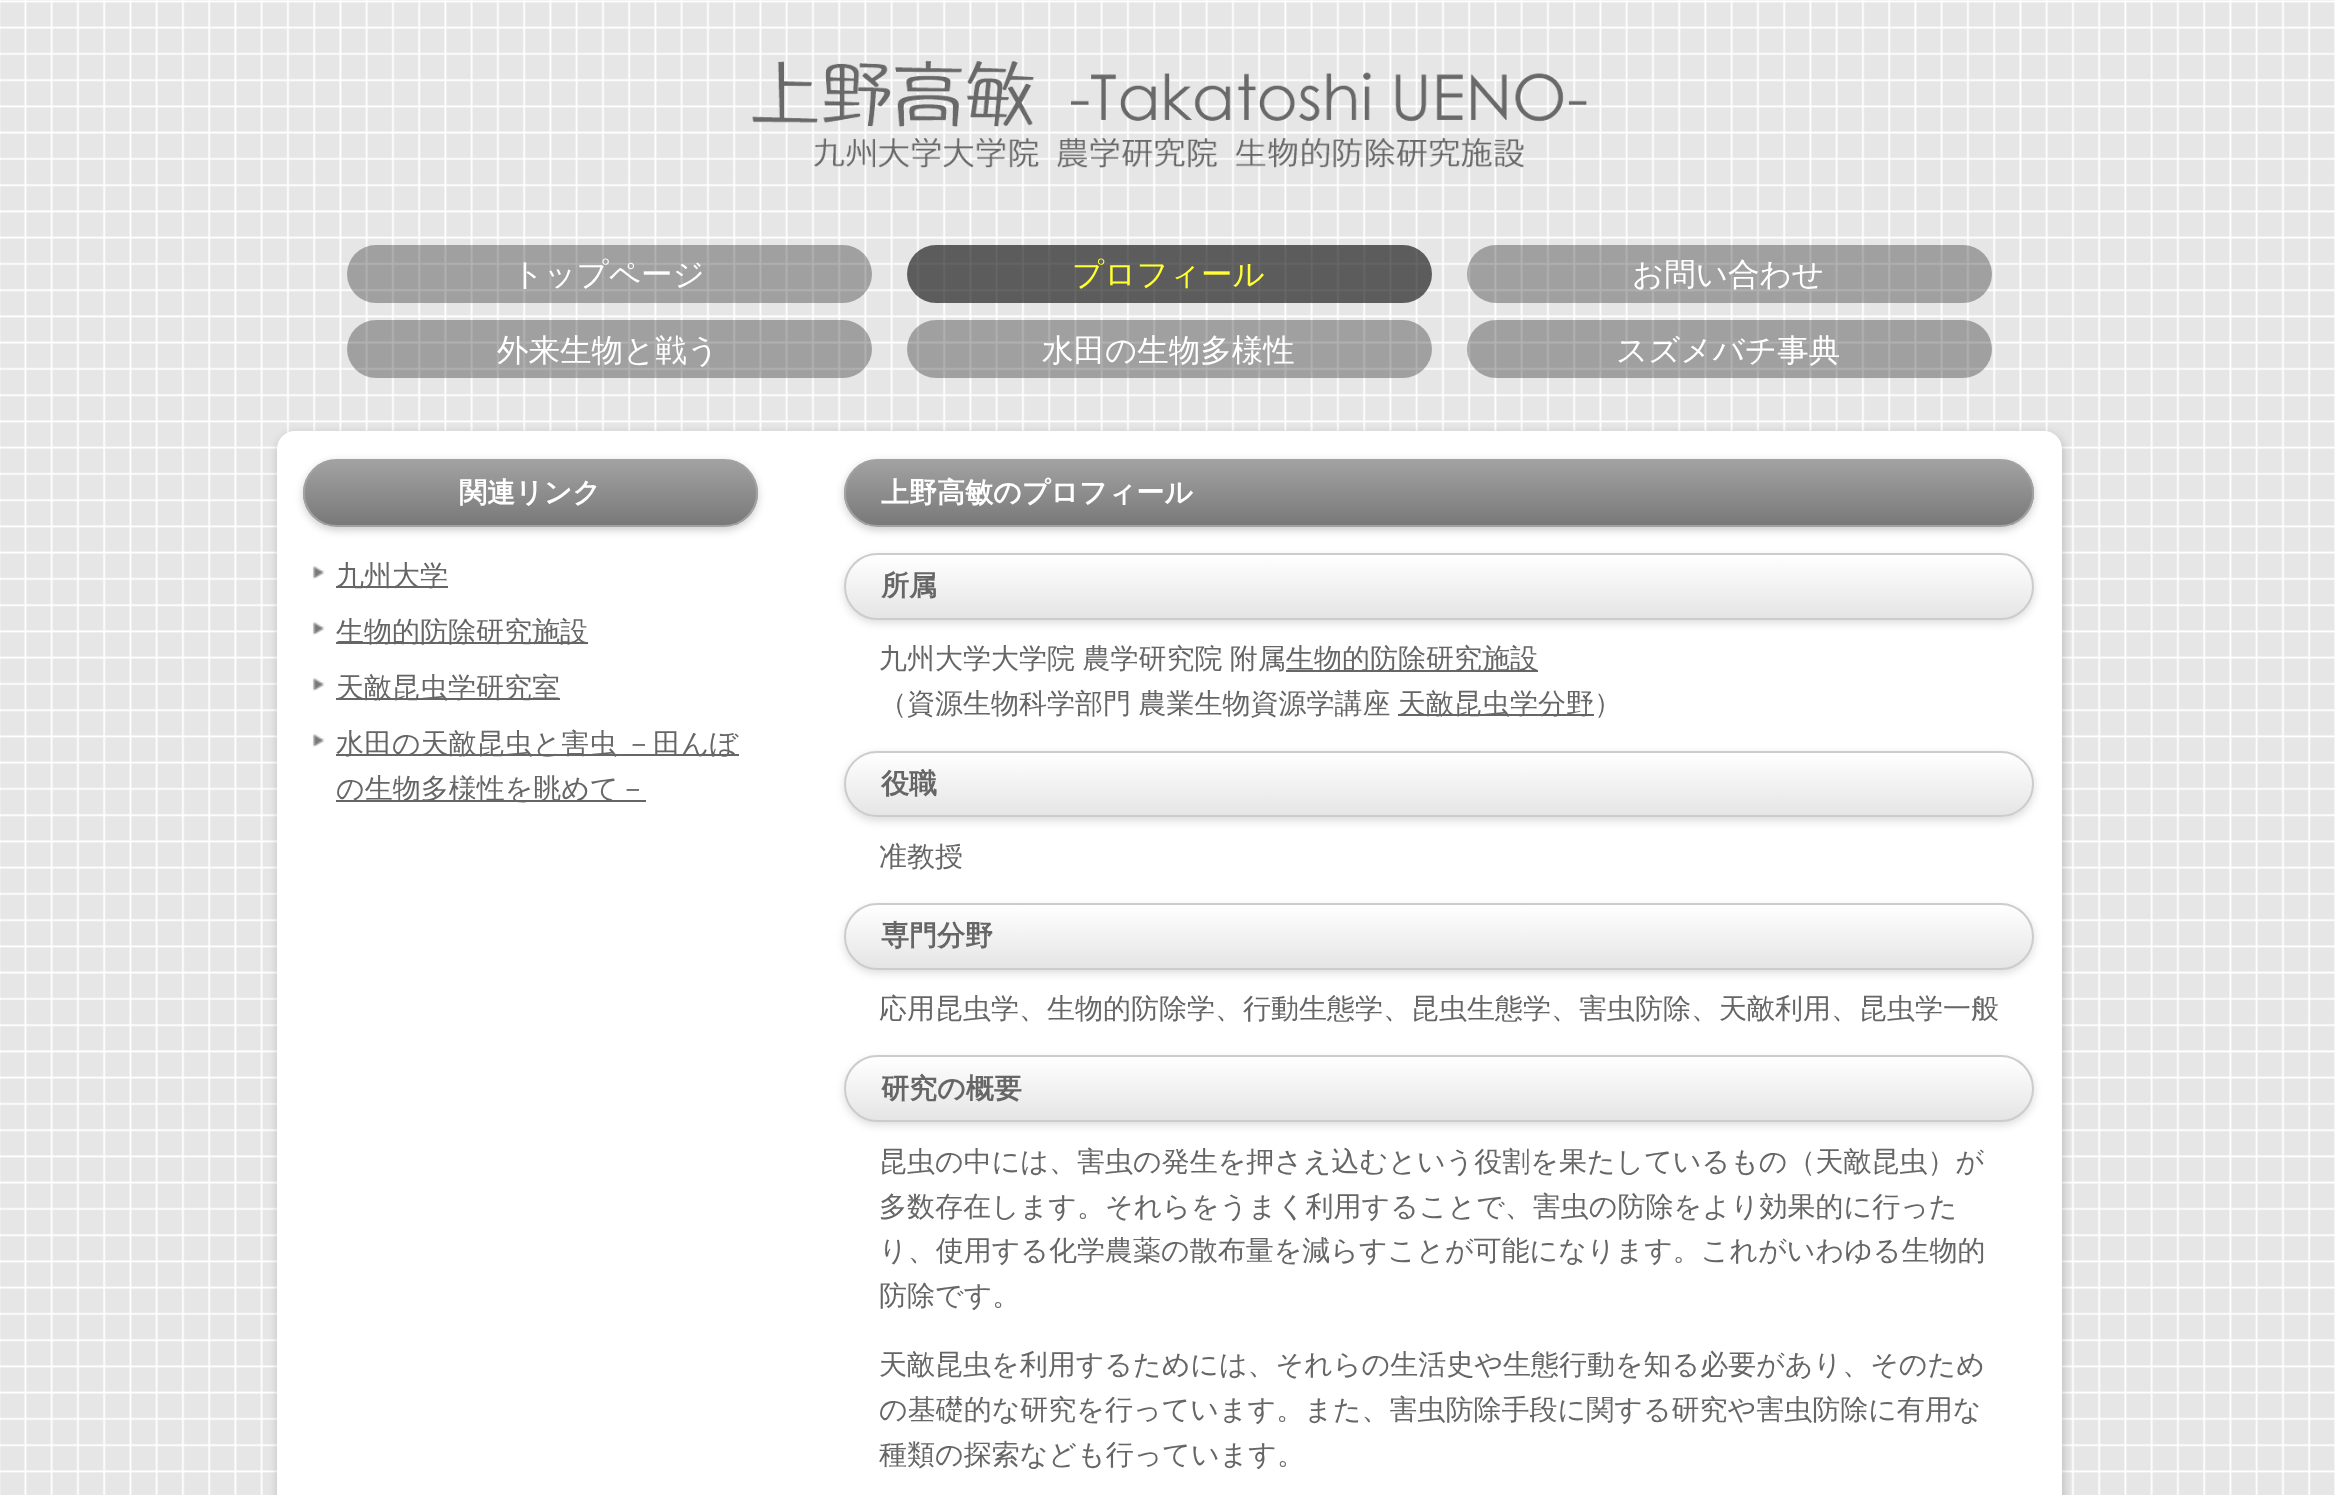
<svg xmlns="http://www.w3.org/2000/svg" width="2336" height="1495">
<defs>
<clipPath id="clip1"><rect x="303" y="459" width="455" height="68" rx="34"/></clipPath>
<linearGradient id="g1" gradientUnits="userSpaceOnUse" x1="530" y1="460" x2="530" y2="525"><stop offset="0" stop-color="#a2a2a2"/><stop offset="1" stop-color="#797979"/></linearGradient>
<clipPath id="clip2"><rect x="844" y="459" width="1190" height="68" rx="34"/></clipPath>
<linearGradient id="g2" gradientUnits="userSpaceOnUse" x1="1439" y1="460" x2="1439" y2="525"><stop offset="0" stop-color="#a2a2a2"/><stop offset="1" stop-color="#797979"/></linearGradient>
<clipPath id="clip3"><rect x="844" y="553" width="1190" height="67" rx="33.5"/></clipPath>
<linearGradient id="g3" gradientUnits="userSpaceOnUse" x1="1439" y1="555" x2="1439" y2="618"><stop offset="0" stop-color="#fff"/><stop offset="1" stop-color="#e5e5e5"/></linearGradient>
<clipPath id="clip4"><rect x="844" y="751" width="1190" height="66" rx="33"/></clipPath>
<linearGradient id="g4" gradientUnits="userSpaceOnUse" x1="1439" y1="752" x2="1439" y2="816"><stop offset="0" stop-color="#fff"/><stop offset="1" stop-color="#e5e5e5"/></linearGradient>
<clipPath id="clip5"><rect x="844" y="903" width="1190" height="67" rx="33.5"/></clipPath>
<linearGradient id="g5" gradientUnits="userSpaceOnUse" x1="1439" y1="905" x2="1439" y2="968"><stop offset="0" stop-color="#fff"/><stop offset="1" stop-color="#e5e5e5"/></linearGradient>
<clipPath id="clip6"><rect x="844" y="1055" width="1190" height="67" rx="33.5"/></clipPath>
<linearGradient id="g6" gradientUnits="userSpaceOnUse" x1="1439" y1="1057" x2="1439" y2="1120"><stop offset="0" stop-color="#fff"/><stop offset="1" stop-color="#e5e5e5"/></linearGradient>
</defs>
<rect width="100%" height="100%" fill="#fff"/>
<image x="0" y="0" width="2335" height="1495" href="media/1.png"/>
<image x="752" y="60" width="835" height="108" href="media/2.png"/>
<rect x="347" y="245" width="525" height="58" rx="29" fill="#0000004d"/>
<text x="512" y="285" style="font-family:WenQuanYi Zen Hei;font-size:31.5px;font-weight:500;fill:#fff">トップページ</text>
<rect x="907" y="245" width="525" height="58" rx="29" fill="#00000099"/>
<text x="1072" y="285" style="font-family:WenQuanYi Zen Hei;font-size:31.5px;font-weight:500;fill:#ff3">プロフィール</text>
<rect x="1467" y="245" width="525" height="58" rx="29" fill="#0000004d"/>
<text x="1632" y="285" style="font-family:WenQuanYi Zen Hei;font-size:31.5px;font-weight:500;fill:#fff">お問い合わせ</text>
<rect x="347" y="320" width="525" height="58" rx="29" fill="#0000004d"/>
<text x="497" y="361" style="font-family:WenQuanYi Zen Hei;font-size:31.5px;font-weight:500;fill:#fff">外来生物と戦う</text>
<rect x="907" y="320" width="525" height="58" rx="29" fill="#0000004d"/>
<text x="1042" y="361" style="font-family:WenQuanYi Zen Hei;font-size:31.5px;font-weight:500;fill:#fff">水田の生物多様性</text>
<rect x="1467" y="320" width="525" height="58" rx="29" fill="#0000004d"/>
<text x="1616" y="361" style="font-family:WenQuanYi Zen Hei;font-size:31.5px;font-weight:500;fill:#fff">スズメバチ事典</text>
<rect x="278" y="434" width="1785" height="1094" rx="18" fill="#00000033" filter="blur(5px)"/>
<rect x="277" y="431" width="1785" height="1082" rx="18" fill="#fff"/>
<rect x="303" y="462" width="455" height="68" rx="34" fill="#ccc" filter="blur(4.5px)"/>
<g clip-path="url(#clip1)">
<rect x="303" y="460" width="455" height="65" fill="url(#g1)"/>
</g>
<rect x="304" y="460" width="453" height="66" rx="33" fill="none" stroke="#a2a2a2" stroke-width="2"/>
<text x="459" y="502" style="font-family:WenQuanYi Zen Hei;font-size:28px;font-weight:bold;fill:#fff">関連リンク</text>
<image x="312" y="565" width="13" height="15" href="media/3.png"/>
<rect x="336" y="586" width="112" height="2" fill="#666"/>
<text x="336" y="585" style="font-family:WenQuanYi Zen Hei;font-size:28px;font-weight:500;fill:#666">九州大学</text>
<image x="312" y="621" width="13" height="15" href="media/3.png"/>
<rect x="336" y="642" width="252" height="2" fill="#666"/>
<text x="336" y="641" style="font-family:WenQuanYi Zen Hei;font-size:28px;font-weight:500;fill:#666">生物的防除研究施設</text>
<image x="312" y="677" width="13" height="15" href="media/3.png"/>
<rect x="336" y="698" width="224" height="2" fill="#666"/>
<text x="336" y="697" style="font-family:WenQuanYi Zen Hei;font-size:28px;font-weight:500;fill:#666">天敵昆虫学研究室</text>
<image x="312" y="733" width="13" height="15" href="media/3.png"/>
<rect x="336" y="754" width="403" height="2" fill="#666"/>
<text x="336" y="753" word-spacing="-1" style="font-family:WenQuanYi Zen Hei;font-size:28px;font-weight:500;fill:#666">水田の天敵昆虫と害虫 －田んぼ</text>
<rect x="336" y="800" width="310" height="2" fill="#666"/>
<text x="336" y="798" style="font-family:WenQuanYi Zen Hei;font-size:28px;font-weight:500;fill:#666">の生物多様性を眺めて－</text>
<rect x="844" y="462" width="1190" height="68" rx="34" fill="#ccc" filter="blur(4.5px)"/>
<g clip-path="url(#clip2)">
<rect x="844" y="460" width="1190" height="65" fill="url(#g2)"/>
</g>
<rect x="845" y="460" width="1188" height="66" rx="33" fill="none" stroke="#a2a2a2" stroke-width="2"/>
<text x="881" y="502" style="font-family:WenQuanYi Zen Hei;font-size:28px;font-weight:bold;fill:#fff">上野高敏のプロフィール</text>
<rect x="844" y="557" width="1190" height="66" rx="33" fill="#dcdcdc" filter="blur(4.5px)"/>
<g clip-path="url(#clip3)">
<rect x="844" y="555" width="1190" height="63" fill="url(#g3)"/>
</g>
<rect x="845" y="554" width="1188" height="65" rx="32.5" fill="none" stroke="#ccc" stroke-width="2"/>
<text x="881" y="595" style="font-family:WenQuanYi Zen Hei;font-size:28px;font-weight:bold;fill:#666">所属</text>
<text x="879" y="668" word-spacing="-1" style="font-family:WenQuanYi Zen Hei;font-size:28px;font-weight:500;fill:#666">九州大学大学院 農学研究院 附属</text>
<rect x="1286" y="670" width="252" height="2" fill="#666"/>
<text x="1286" y="668" style="font-family:WenQuanYi Zen Hei;font-size:28px;font-weight:500;fill:#666">生物的防除研究施設</text>
<text x="879" y="713" word-spacing="-1" style="font-family:WenQuanYi Zen Hei;font-size:28px;font-weight:500;fill:#666">（資源生物科学部門 農業生物資源学講座</text>
<rect x="1398" y="714" width="196" height="2" fill="#666"/>
<text x="1398" y="713" style="font-family:WenQuanYi Zen Hei;font-size:28px;font-weight:500;fill:#666">天敵昆虫学分野）</text>
<rect x="844" y="754" width="1190" height="67" rx="33.5" fill="#dcdcdc" filter="blur(4.5px)"/>
<g clip-path="url(#clip4)">
<rect x="844" y="753" width="1190" height="63" fill="url(#g4)"/>
</g>
<rect x="845" y="752" width="1188" height="64" rx="32" fill="none" stroke="#ccc" stroke-width="2"/>
<text x="881" y="793" style="font-family:WenQuanYi Zen Hei;font-size:28px;font-weight:bold;fill:#666">役職</text>
<text x="879" y="866" style="font-family:WenQuanYi Zen Hei;font-size:28px;font-weight:500;fill:#666">准教授</text>
<rect x="844" y="907" width="1190" height="66" rx="33" fill="#dcdcdc" filter="blur(4.5px)"/>
<g clip-path="url(#clip5)">
<rect x="844" y="905" width="1190" height="63" fill="url(#g5)"/>
</g>
<rect x="845" y="904" width="1188" height="65" rx="32.5" fill="none" stroke="#ccc" stroke-width="2"/>
<text x="881" y="945" style="font-family:WenQuanYi Zen Hei;font-size:28px;font-weight:bold;fill:#666">専門分野</text>
<text x="879" y="1018" style="font-family:WenQuanYi Zen Hei;font-size:28px;font-weight:500;fill:#666">応用昆虫学、生物的防除学、行動生態学、昆虫生態学、害虫防除、天敵利用、昆虫学一般</text>
<rect x="844" y="1059" width="1190" height="66" rx="33" fill="#dcdcdc" filter="blur(4.5px)"/>
<g clip-path="url(#clip6)">
<rect x="844" y="1057" width="1190" height="63" fill="url(#g6)"/>
</g>
<rect x="845" y="1056" width="1188" height="65" rx="32.5" fill="none" stroke="#ccc" stroke-width="2"/>
<text x="881" y="1098" style="font-family:WenQuanYi Zen Hei;font-size:28px;font-weight:bold;fill:#666">研究の概要</text>
<text x="879" y="1171" style="font-family:WenQuanYi Zen Hei;font-size:28px;font-weight:500;fill:#666">昆虫の中には、害虫の発生を押さえ込むという役割を果たしているもの（天敵昆虫）が</text>
<text x="879" y="1216" style="font-family:WenQuanYi Zen Hei;font-size:28px;font-weight:500;fill:#666">多数存在します。それらをうまく利用することで、害虫の防除をより効果的に行った</text>
<text x="879" y="1260" style="font-family:WenQuanYi Zen Hei;font-size:28px;font-weight:500;fill:#666">り、使用する化学農薬の散布量を減らすことが可能になります。これがいわゆる生物的</text>
<text x="879" y="1305" style="font-family:WenQuanYi Zen Hei;font-size:28px;font-weight:500;fill:#666">防除です。</text>
<text x="879" y="1374" style="font-family:WenQuanYi Zen Hei;font-size:28px;font-weight:500;fill:#666">天敵昆虫を利用するためには、それらの生活史や生態行動を知る必要があり、そのため</text>
<text x="879" y="1419" style="font-family:WenQuanYi Zen Hei;font-size:28px;font-weight:500;fill:#666">の基礎的な研究を行っています。また、害虫防除手段に関する研究や害虫防除に有用な</text>
<text x="879" y="1464" style="font-family:WenQuanYi Zen Hei;font-size:28px;font-weight:500;fill:#666">種類の探索なども行っています。</text>
</svg>
